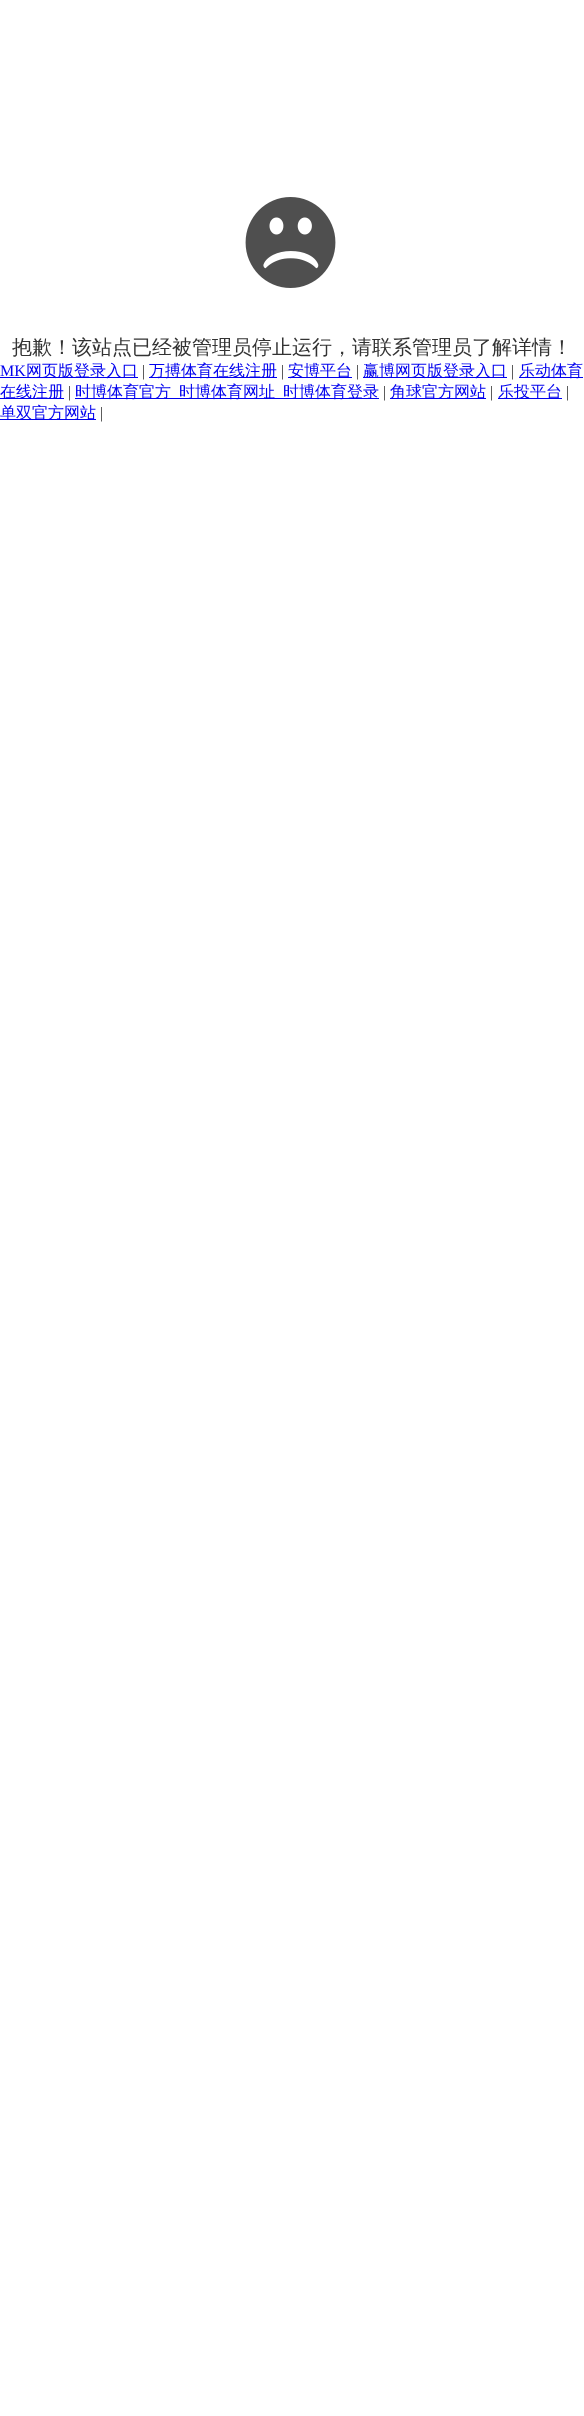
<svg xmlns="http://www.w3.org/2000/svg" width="584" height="2416">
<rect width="100%" height="100%" fill="#fff"/>
<image x="245" y="197" width="91" height="91" href="media/1.png"/>
<text x="12" y="354" style="font-family:WenQuanYi Zen Hei;font-size:20px;font-weight:500;fill:#333">抱歉！该站点已经被管理员停止运行，请联系管理员了解详情！</text>
<text x="0" y="376" style="font-family:Liberation Serif;font-size:16px;fill:#00e">MK</text>
<rect y="377" width="138" height="1" fill="#00e"/>
<text x="26" y="376" style="font-family:WenQuanYi Zen Hei;font-size:16px;font-weight:500;fill:#00e">网页版登录入口</text>
<text x="142" y="376" style="font-family:Liberation Serif;font-size:16px;fill:#333">|</text>
<rect x="149" y="377" width="128" height="1" fill="#00e"/>
<text x="149" y="376" style="font-family:WenQuanYi Zen Hei;font-size:16px;font-weight:500;fill:#00e">万搏体育在线注册</text>
<text x="281" y="376" style="font-family:Liberation Serif;font-size:16px;fill:#333">|</text>
<rect x="288" y="377" width="64" height="1" fill="#00e"/>
<text x="288" y="376" style="font-family:WenQuanYi Zen Hei;font-size:16px;font-weight:500;fill:#00e">安博平台</text>
<text x="356" y="376" style="font-family:Liberation Serif;font-size:16px;fill:#333">|</text>
<rect x="363" y="377" width="144" height="1" fill="#00e"/>
<text x="363" y="376" style="font-family:WenQuanYi Zen Hei;font-size:16px;font-weight:500;fill:#00e">赢博网页版登录入口</text>
<text x="511" y="376" style="font-family:Liberation Serif;font-size:16px;fill:#333">|</text>
<rect x="519" y="377" width="64" height="1" fill="#00e"/>
<text x="519" y="376" style="font-family:WenQuanYi Zen Hei;font-size:16px;font-weight:500;fill:#00e">乐动体育</text>
<rect y="398" width="64" height="1" fill="#00e"/>
<text x="0" y="397" style="font-family:WenQuanYi Zen Hei;font-size:16px;font-weight:500;fill:#00e">在线注册</text>
<text x="68" y="397" style="font-family:Liberation Serif;font-size:16px;fill:#333">|</text>
<rect x="75" y="398" width="304" height="1" fill="#00e"/>
<text x="75" y="397" style="font-family:WenQuanYi Zen Hei;font-size:16px;font-weight:500;fill:#00e">时博体育官方</text>
<text x="179" y="397" style="font-family:WenQuanYi Zen Hei;font-size:16px;font-weight:500;fill:#00e">时博体育网址</text>
<text x="283" y="397" style="font-family:WenQuanYi Zen Hei;font-size:16px;font-weight:500;fill:#00e">时博体育登录</text>
<text x="383" y="397" style="font-family:Liberation Serif;font-size:16px;fill:#333">|</text>
<rect x="390" y="398" width="96" height="1" fill="#00e"/>
<text x="390" y="397" style="font-family:WenQuanYi Zen Hei;font-size:16px;font-weight:500;fill:#00e">角球官方网站</text>
<text x="490" y="397" style="font-family:Liberation Serif;font-size:16px;fill:#333">|</text>
<rect x="498" y="398" width="64" height="1" fill="#00e"/>
<text x="498" y="397" style="font-family:WenQuanYi Zen Hei;font-size:16px;font-weight:500;fill:#00e">乐投平台</text>
<text x="566" y="397" style="font-family:Liberation Serif;font-size:16px;fill:#333">|</text>
<rect y="419" width="96" height="1" fill="#00e"/>
<text x="0" y="418" style="font-family:WenQuanYi Zen Hei;font-size:16px;font-weight:500;fill:#00e">单双官方网站</text>
<text x="100" y="418" style="font-family:Liberation Serif;font-size:16px;fill:#333">|</text>
</svg>
